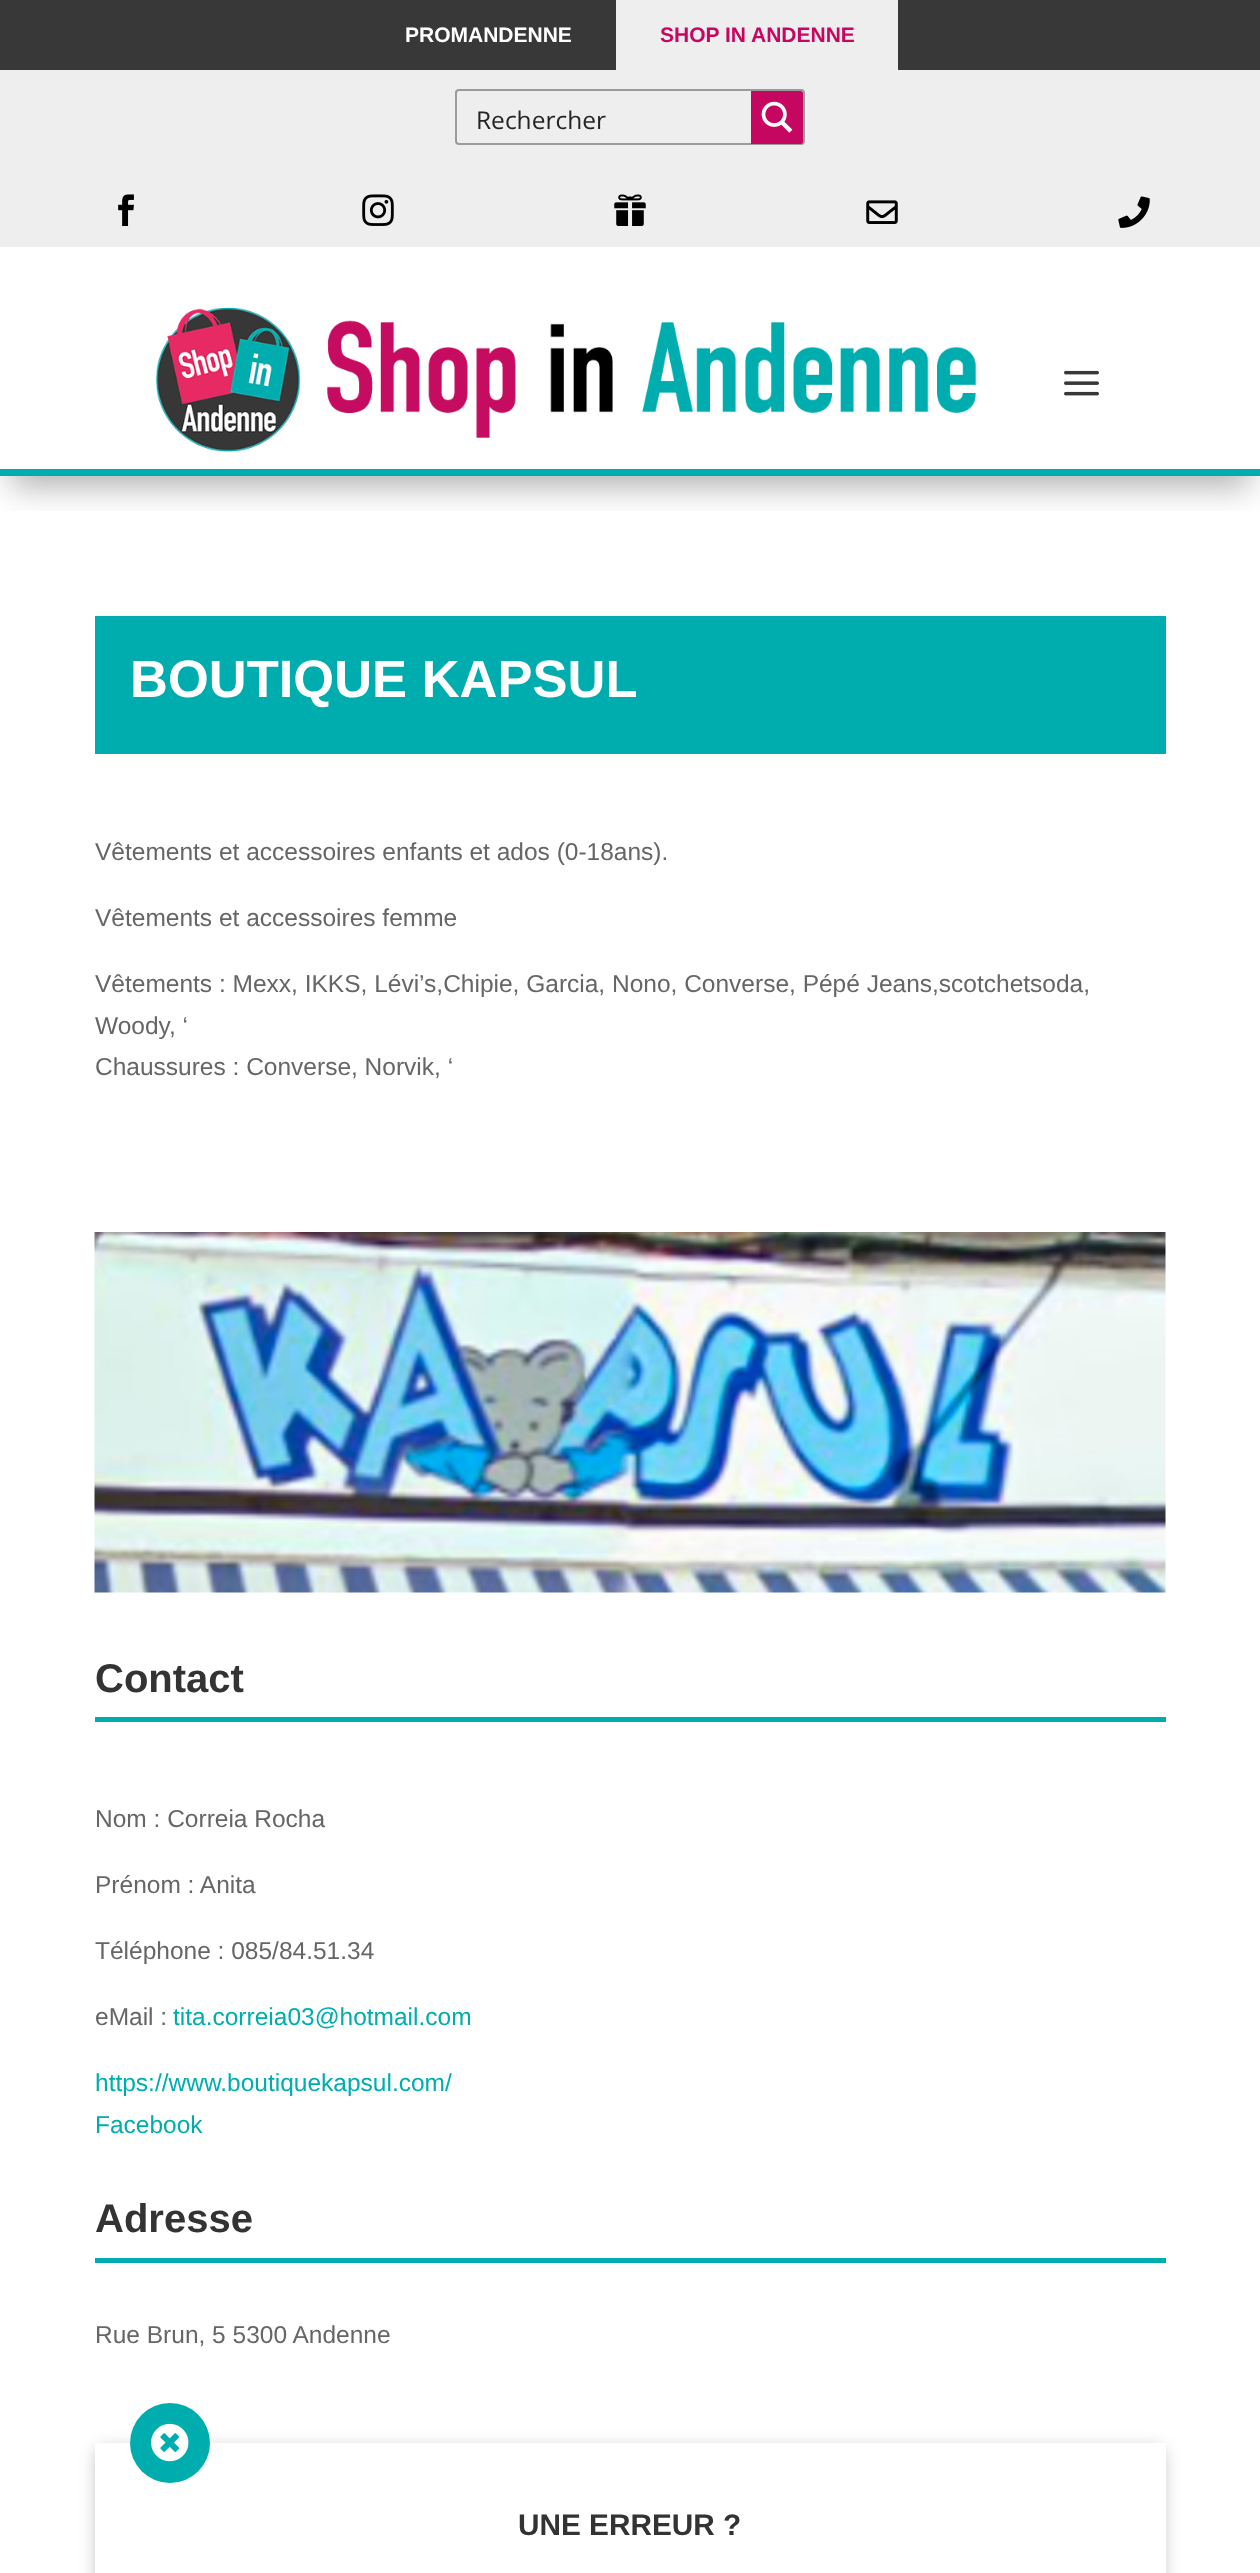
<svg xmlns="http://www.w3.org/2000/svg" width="1260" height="2573">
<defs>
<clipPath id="clip1"><rect x="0" y="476" width="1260" height="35"/></clipPath>
</defs>
<rect width="100%" height="100%" fill="#fff"/>
<rect width="1260" height="70" fill="#383838"/>
<text x="405" y="42" style="font-family:Liberation Sans;font-size:21px;font-weight:bold;fill:#fff">PROMANDENNE</text>
<rect x="616" width="282" height="70" fill="#eee"/>
<text x="660" y="42" style="font-family:Liberation Sans;font-size:21px;font-weight:bold;fill:#c60761">SHOP IN ANDENNE</text>
<g clip-path="url(#clip1)">
<rect x="11" y="102" width="1239" height="385" fill="#0000004d" filter="blur(16px)"/>
</g>
<rect y="469" width="1260" height="7" fill="#00adae"/>
<rect y="70" width="1260" height="177" fill="#eee"/>
<rect x="456" y="90" width="348" height="54" rx="3" fill="none" stroke="#9c9a9a" stroke-width="2"/>
<text x="476" y="129" style="font-family:Open Sans;font-size:24.5px;fill:#242424">Rechercher</text>
<path d="M751 91h50c1 0 2 1 2 2v49c0 1-1 2-2 2h-50z" fill="#c60761"/>
<image x="761" y="101" width="32" height="32" href="media/1.png"/>
<image x="118" y="194" width="16" height="32" href="media/2.png"/>
<image x="362" y="194" width="32" height="32" href="media/3.png"/>
<image x="614" y="194" width="32" height="32" href="media/4.png"/>
<image x="866" y="200" width="32" height="24" href="media/5.png"/>
<image x="1118" y="196" width="32" height="32" href="media/6.png"/>
<image x="156" y="307" width="821" height="145" href="media/7.png"/>
<image x="1064" y="370" width="35" height="26" href="media/8.png"/>
<rect x="95" y="616" width="1071" height="138" fill="#00adae"/>
<text x="130" y="697" style="font-family:Liberation Sans;font-size:52.5px;font-weight:bold;fill:#fff">BOUTIQUE KAPSUL</text>
<text x="95" y="860" style="font-family:Liberation Sans;font-size:24.5px;fill:#666">Vêtements et accessoires enfants et ados (0-18ans).</text>
<text x="95" y="926" style="font-family:Liberation Sans;font-size:24.5px;fill:#666">Vêtements et accessoires femme</text>
<text x="95" y="992" style="font-family:Liberation Sans;font-size:24.5px;fill:#666">Vêtements : Mexx, IKKS, Lévi’s,Chipie, Garcia, Nono, Converse, Pépé Jeans,scotchetsoda,</text>
<text x="95" y="1034" style="font-family:Liberation Sans;font-size:24.5px;fill:#666">Woody, ‘</text>
<text x="95" y="1075" style="font-family:Liberation Sans;font-size:24.5px;fill:#666">Chaussures : Converse, Norvik, ‘</text>
<image x="94" y="1232" width="1072" height="361" href="media/9.png"/>
<rect x="95" y="1717" width="1071" height="5" fill="#00adae"/>
<text x="95" y="1692" style="font-family:Liberation Sans;font-size:40px;font-weight:bold;fill:#333">Contact</text>
<text x="95" y="1827" style="font-family:Liberation Sans;font-size:24.5px;fill:#666">Nom : Correia Rocha</text>
<text x="95" y="1893" style="font-family:Liberation Sans;font-size:24.5px;fill:#666">Prénom : Anita</text>
<text x="95" y="1959" style="font-family:Liberation Sans;font-size:24.5px;fill:#666">Téléphone : 085/84.51.34</text>
<text x="95" y="2025" style="font-family:Liberation Sans;font-size:24.5px;fill:#666">eMail :</text>
<text x="173" y="2025" style="font-family:Liberation Sans;font-size:24.5px;fill:#00adae">tita.correia03@hotmail.com</text>
<text x="95" y="2091" style="font-family:Liberation Sans;font-size:24.5px;fill:#00adae">https://www.boutiquekapsul.com/</text>
<text x="95" y="2133" style="font-family:Liberation Sans;font-size:24.5px;fill:#00adae">Facebook</text>
<rect x="95" y="2258" width="1071" height="5" fill="#00adae"/>
<text x="95" y="2232" style="font-family:Liberation Sans;font-size:40px;font-weight:bold;fill:#333">Adresse</text>
<text x="95" y="2343" style="font-family:Liberation Sans;font-size:24.5px;fill:#666">Rue Brun, 5 5300 Andenne</text>
<rect x="98" y="2450" width="1064" height="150" fill="#0000004d" filter="blur(9px)"/>
<rect x="95" y="2443" width="1071" height="130" fill="#fff"/>
<circle cx="170" cy="2443" r="40" fill="#00adae"/>
<image x="151" y="2423" width="38" height="39" href="media/10.png"/>
<text x="518" y="2535" style="font-family:Liberation Sans;font-size:29.75px;font-weight:bold;fill:#333">UNE ERREUR ?</text>
</svg>
